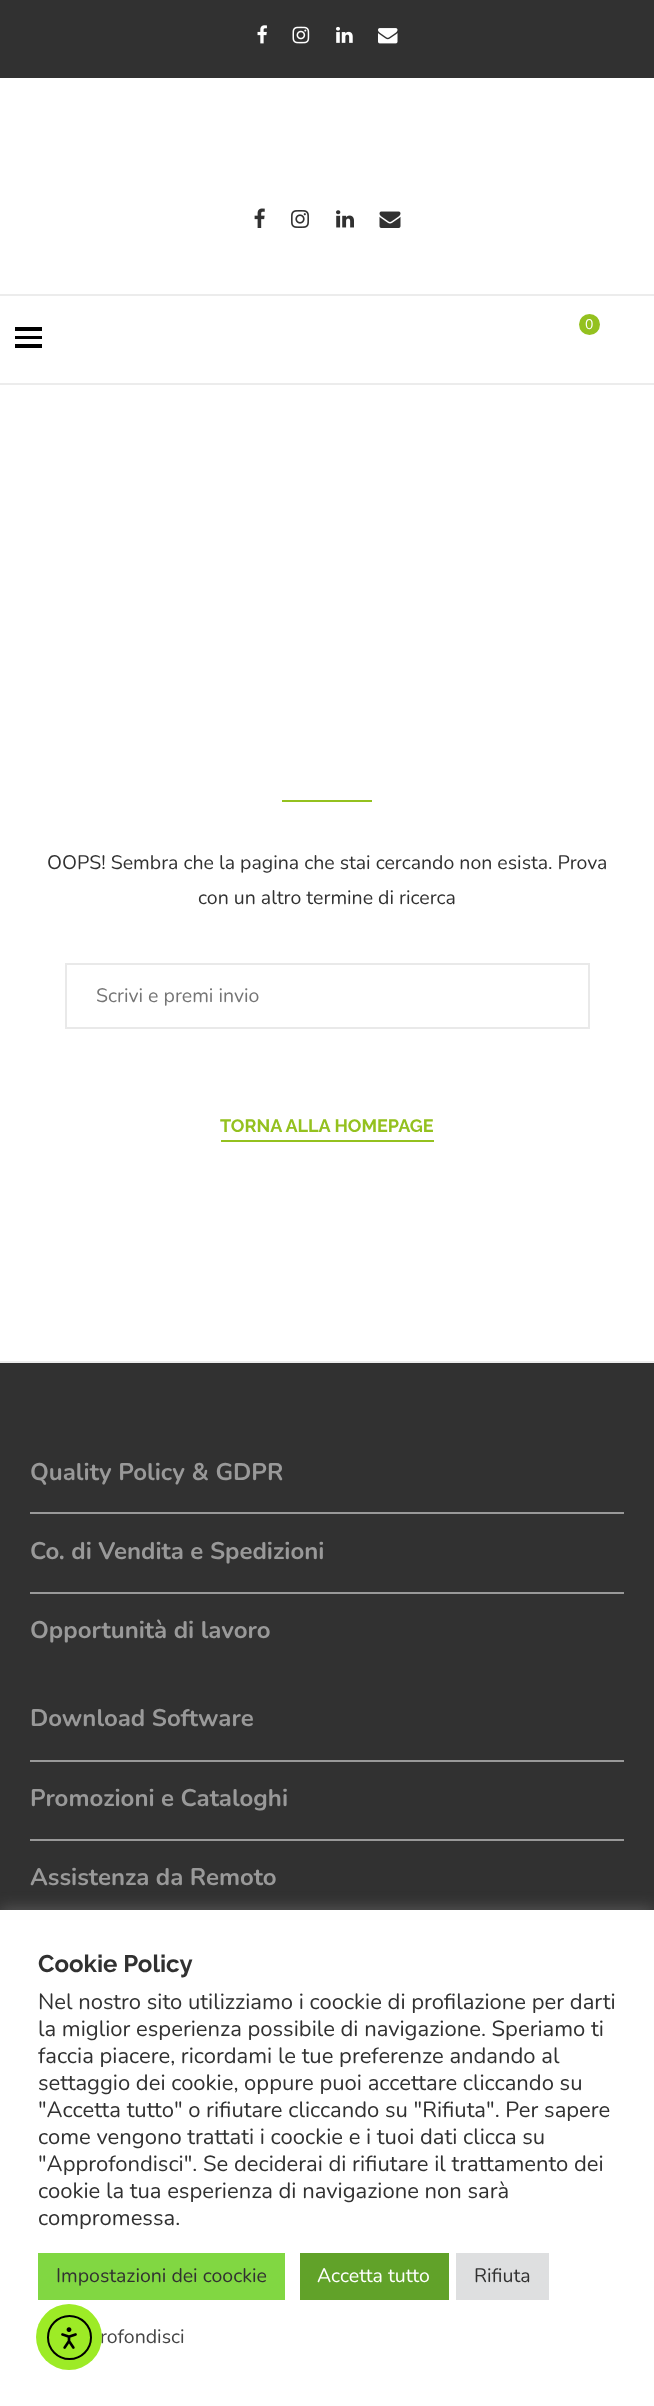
<svg xmlns="http://www.w3.org/2000/svg" width="654" height="2406">
<rect width="100%" height="100%" fill="#fff"/>
<rect width="654" height="78" fill="#313131"/>
<image x="257" y="25" width="10" height="19" href="media/1.png"/>
<image x="292" y="26" width="18" height="18" href="media/2.png"/>
<image x="336" y="26" width="17" height="17" href="media/3.png"/>
<image x="378" y="28" width="20" height="16" href="media/4.png"/>
<image x="254" y="208" width="11" height="20" href="media/5.png"/>
<image x="291" y="210" width="18" height="18" href="media/6.png"/>
<image x="336" y="210" width="18" height="18" href="media/7.png"/>
<image x="379" y="211" width="22" height="17" href="media/8.png"/>
<rect y="294" width="654" height="2" fill="#ececec"/>
<rect y="383" width="654" height="2" fill="#ececec"/>
<circle cx="589.5" cy="324.5" r="10.5" fill="#94c11f"/>
<text x="585" y="329" style="font-family:Nunito;font-size:14px;fill:#fff">0</text>
<rect x="15" y="327" width="27" height="4" fill="#000"/>
<rect x="15" y="336" width="27" height="3" fill="#000"/>
<rect x="15" y="344" width="27" height="4" fill="#000"/>
<rect x="282" y="800" width="90" height="2" fill="#94c11f"/>
<text x="47" y="869" style="font-family:Nunito;font-size:19.5px;fill:#313131">OOPS! Sembra che la pagina che stai cercando non esista. Prova</text>
<text x="198" y="904" style="font-family:Nunito;font-size:19.5px;fill:#313131">con un altro termine di ricerca</text>
<rect x="66" y="964" width="523" height="64" fill="none" stroke="#e9e9e9" stroke-width="2"/>
<text x="96" y="1002" style="font-family:Nunito;font-size:19.5px;fill:#757575">Scrivi e premi invio</text>
<text x="220" y="1132" style="font-family:Raleway;font-size:18px;font-weight:bold;fill:#94c11f">TORNA ALLA HOMEPAGE</text>
<rect x="221" y="1140" width="213" height="2" fill="#94c11f"/>
<rect y="1363" width="654" height="547" fill="#313131"/>
<rect y="1361" width="654" height="2" fill="#ececec"/>
<rect x="30" y="1512" width="594" height="2" fill="#999"/>
<text x="30" y="1480" style="font-family:Nunito;font-size:24px;font-weight:bold;fill:#999">Quality Policy &amp; GDPR</text>
<rect x="30" y="1592" width="594" height="2" fill="#999"/>
<text x="30" y="1559" style="font-family:Nunito;font-size:24px;font-weight:bold;fill:#999">Co. di Vendita e Spedizioni</text>
<text x="30" y="1638" style="font-family:Nunito;font-size:24px;font-weight:bold;fill:#999">Opportunità di lavoro</text>
<rect x="30" y="1760" width="594" height="2" fill="#999"/>
<text x="30" y="1726" style="font-family:Nunito;font-size:24px;font-weight:bold;fill:#999">Download Software</text>
<rect x="30" y="1839" width="594" height="2" fill="#999"/>
<text x="30" y="1806" style="font-family:Nunito;font-size:24px;font-weight:bold;fill:#999">Promozioni e Cataloghi</text>
<text x="30" y="1885" style="font-family:Nunito;font-size:24px;font-weight:bold;fill:#999">Assistenza da Remoto</text>
<rect y="1908" width="654" height="497" fill="#acabab4d" filter="blur(7.5px)"/>
<rect y="1910" width="654" height="496" fill="#fff"/>
<text x="38" y="1972" style="font-family:Raleway;font-size:24px;font-weight:bold;fill:#313131">Cookie Policy</text>
<text x="38" y="2009" style="font-family:Nunito;font-size:22px;fill:#313131">Nel nostro sito utilizziamo i coockie di profilazione per darti</text>
<text x="38" y="2036" style="font-family:Nunito;font-size:22px;fill:#313131">la miglior esperienza possibile di navigazione. Speriamo ti</text>
<text x="38" y="2063" style="font-family:Nunito;font-size:22px;fill:#313131">faccia piacere, ricordami le tue preferenze andando al</text>
<text x="38" y="2090" style="font-family:Nunito;font-size:22px;fill:#313131">settaggio dei cookie, oppure puoi accettare cliccando su</text>
<text x="38" y="2117" style="font-family:Nunito;font-size:22px;fill:#313131">"Accetta tutto" o rifiutare cliccando su "Rifiuta". Per sapere</text>
<text x="38" y="2144" style="font-family:Nunito;font-size:22px;fill:#313131">come vengono trattati i coockie e i tuoi dati clicca su</text>
<text x="38" y="2171" style="font-family:Nunito;font-size:22px;fill:#313131">"Approfondisci". Se deciderai di rifiutare il trattamento dei</text>
<text x="38" y="2198" style="font-family:Nunito;font-size:22px;fill:#313131">cookie la tua esperienza di navigazione non sarà</text>
<text x="38" y="2225" style="font-family:Nunito;font-size:22px;fill:#313131">compromessa.</text>
<rect x="38" y="2253" width="247" height="47" fill="#81d742"/>
<text x="56" y="2282" style="font-family:Nunito;font-size:19.5px;fill:#313131">Impostazioni dei coockie</text>
<rect x="300" y="2253" width="149" height="47" fill="#61a229"/>
<text x="317" y="2282" style="font-family:Nunito;font-size:19.5px;fill:#fff">Accetta tutto</text>
<rect x="456" y="2253" width="93" height="47" fill="#dedfe0"/>
<text x="474" y="2282" style="font-family:Nunito;font-size:19.5px;fill:#313131">Rifiuta</text>
<text x="100" y="2343" style="font-family:Nunito;font-size:19.5px;fill:#444">rofondisci</text>
<circle cx="69" cy="2337" r="33" fill="#9deb26"/>
<circle cx="69.5" cy="2337.5" r="21.5" fill="none" stroke="#000" stroke-width="2"/>
<image x="61" y="2327" width="16" height="22" href="media/9.png"/>
</svg>
